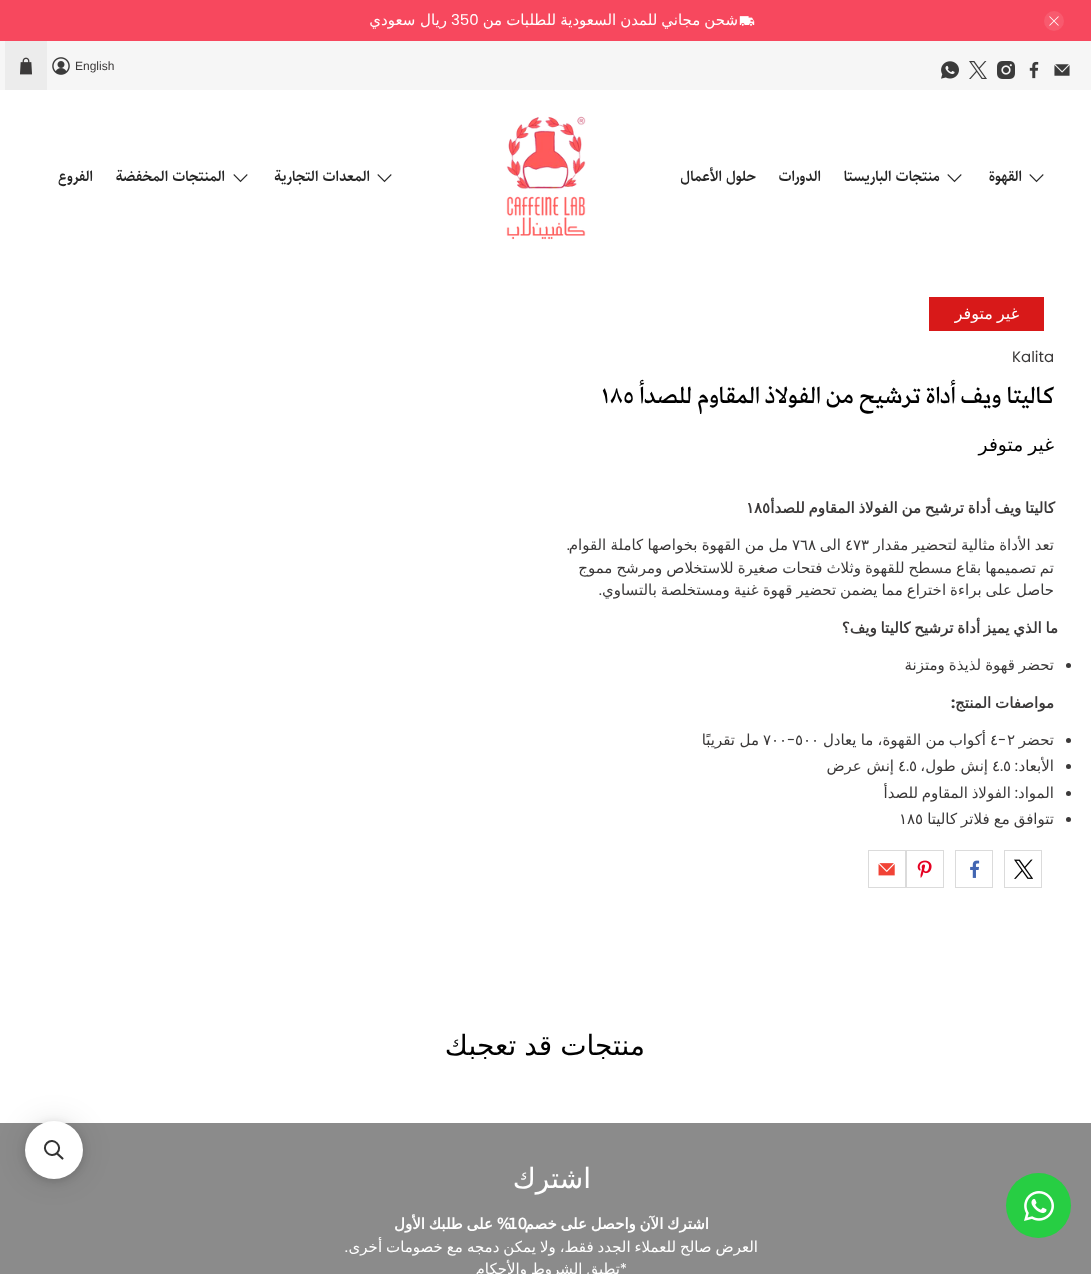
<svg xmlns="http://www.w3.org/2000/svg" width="1091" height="1274">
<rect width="100%" height="100%" fill="#fff"/>
<rect width="1091" height="41" fill="#f7485e"/>
<circle cx="1054" cy="21" r="10" fill="#f85a6e"/>
<image x="1049" y="16" width="10" height="10" href="media/1.png"/>
<text x="738" y="25" word-spacing="-0.75" style="font-family:DejaVu Sans;font-size:15px;direction:rtl;fill:#fff">شحن مجاني للمدن السعودية للطلبات من</text>
<image x="739" y="16" width="16" height="10" href="media/2.png"/>
<text x="451" y="25" style="font-family:Poppins;font-size:15px;fill:#fff">350</text>
<text x="447" y="25" style="font-family:DejaVu Sans;font-size:15px;direction:rtl;fill:#fff">ريال سعودي</text>
<rect y="41" width="1091" height="49" fill="#f6f6f6"/>
<image x="1054" y="64" width="16" height="12" href="media/3.png"/>
<image x="1029" y="61" width="10" height="18" href="media/4.png"/>
<image x="997" y="61" width="18" height="18" href="media/5.png"/>
<image x="969" y="61" width="18" height="18" href="media/6.png"/>
<image x="941" y="61" width="18" height="18" href="media/7.png"/>
<text x="75" y="70" style="font-family:Liberation Sans;font-size:12px;fill:#3b3939">English</text>
<image x="52" y="57" width="18" height="18" href="media/8.png"/>
<rect x="5" y="41" width="42" height="49" fill="#ececec"/>
<image x="20" y="57" width="12" height="18" href="media/9.png"/>
<image x="1029" y="174" width="15" height="9" href="media/10.png"/>
<text x="1022" y="181" style="font-family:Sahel;font-size:15px;font-weight:bold;direction:rtl;fill:#262626">القهوة</text>
<image x="947" y="174" width="15" height="9" href="media/10.png"/>
<text x="940" y="181" style="font-family:Sahel;font-size:15px;font-weight:bold;direction:rtl;fill:#262626">منتجات الباريستا</text>
<text x="821" y="181" style="font-family:Sahel;font-size:15px;font-weight:bold;direction:rtl;fill:#262626">الدورات</text>
<text x="756" y="181" style="font-family:Sahel;font-size:15px;font-weight:bold;direction:rtl;fill:#262626">حلول الأعمال</text>
<image x="506" y="116" width="80" height="124" href="media/11.png"/>
<image x="377" y="174" width="15" height="9" href="media/10.png"/>
<text x="370" y="181" style="font-family:Sahel;font-size:15px;font-weight:bold;direction:rtl;fill:#262626">المعدات التجارية</text>
<image x="233" y="174" width="15" height="9" href="media/10.png"/>
<text x="225" y="181" style="font-family:Sahel;font-size:15px;font-weight:bold;direction:rtl;fill:#262626">المنتجات المخفضة</text>
<text x="93" y="181" style="font-family:Sahel;font-size:15px;font-weight:bold;direction:rtl;fill:#262626">الفروع</text>
<rect x="929" y="297" width="115" height="34" fill="#d81919"/>
<text x="1019" y="319" word-spacing="-1" style="font-family:DejaVu Sans;font-size:16px;direction:rtl;fill:#fff">غير متوفر</text>
<text x="1012" y="362" style="font-family:Poppins;font-size:15px;fill:#3b3939">Kalita</text>
<text x="1054" y="403" style="font-family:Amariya;font-size:32px;font-weight:bold;direction:rtl;fill:#000">كاليتا ويف أداة ترشيح من الفولاذ المقاوم للصدأ</text>
<text x="602" y="403" style="font-family:Amariya;font-size:32px;font-weight:bold;fill:#000">١٨٥</text>
<text x="1054" y="451" word-spacing="-1" style="font-family:DejaVu Sans;font-size:18.75px;direction:rtl;fill:#000">غير متوفر</text>
<text x="1055" y="513" word-spacing="-1" style="font-family:DejaVu Sans;font-size:15px;font-weight:bold;direction:rtl;fill:#3b3939">كاليتا ويف أداة ترشيح من الفولاذ المقاوم للصدأ</text>
<text x="746" y="513" style="font-family:DejaVu Sans;font-size:15px;font-weight:bold;fill:#3b3939">١٨٥</text>
<text x="1054" y="550" word-spacing="-0.75" style="font-family:DejaVu Sans;font-size:15px;direction:rtl;fill:#3b3939">تعد الأداة مثالية لتحضير مقدار</text>
<text x="845" y="550" style="font-family:DejaVu Sans;font-size:15px;fill:#3b3939">٤٧٣</text>
<text x="841" y="550" style="font-family:DejaVu Sans;font-size:15px;direction:rtl;fill:#3b3939">الى</text>
<text x="792" y="550" style="font-family:DejaVu Sans;font-size:15px;fill:#3b3939">٧٦٨</text>
<text x="788" y="550" word-spacing="-0.5" style="font-family:DejaVu Sans;font-size:15px;direction:rtl;fill:#3b3939">مل من القهوة بخواصها كاملة القوام</text>
<text x="570" y="550" style="font-family:Poppins;font-size:15px;direction:rtl;fill:#3b3939">.</text>
<text x="1054" y="573" word-spacing="-0.75" style="font-family:DejaVu Sans;font-size:15px;direction:rtl;fill:#3b3939">تم تصميمها بقاع مسطح للقهوة وثلاث فتحات صغيرة للاستخلاص ومرشح مموج</text>
<text x="1054" y="595" word-spacing="-0.75" style="font-family:DejaVu Sans;font-size:15px;direction:rtl;fill:#3b3939">حاصل على براءة اختراع مما يضمن تحضير قهوة غنية ومستخلصة بالتساوي</text>
<text x="602" y="595" style="font-family:Poppins;font-size:15px;direction:rtl;fill:#3b3939">.</text>
<text x="1058" y="633" word-spacing="-1" style="font-family:DejaVu Sans;font-size:15px;font-weight:bold;direction:rtl;fill:#3b3939">ما الذي يميز أداة ترشيح كاليتا ويف؟</text>
<circle cx="1068.5" cy="665.5" r="2.5" fill="#3b3939"/>
<text x="1054" y="670" word-spacing="-0.75" style="font-family:DejaVu Sans;font-size:15px;direction:rtl;fill:#3b3939">تحضر قهوة لذيذة ومتزنة</text>
<text x="1054" y="708" word-spacing="-1" style="font-family:DejaVu Sans;font-size:15px;font-weight:bold;direction:rtl;fill:#3b3939">مواصفات المنتج</text>
<text x="951" y="708" style="font-family:Poppins;font-size:15px;font-weight:bold;fill:#3b3939">:</text>
<circle cx="1068.5" cy="740.5" r="2.5" fill="#3b3939"/>
<text x="1054" y="745" style="font-family:DejaVu Sans;font-size:15px;direction:rtl;fill:#3b3939">تحضر</text>
<text x="1007" y="745" style="font-family:DejaVu Sans;font-size:15px;fill:#3b3939">٢</text>
<text x="998" y="745" style="font-family:Poppins;font-size:15px;fill:#3b3939">-</text>
<text x="990" y="745" style="font-family:DejaVu Sans;font-size:15px;fill:#3b3939">٤</text>
<text x="986" y="745" style="font-family:DejaVu Sans;font-size:15px;direction:rtl;fill:#3b3939">أكواب</text>
<text x="945" y="745" word-spacing="-0.5" style="font-family:DejaVu Sans;font-size:15px;direction:rtl;fill:#3b3939">من القهوة، ما يعادل</text>
<text x="795" y="745" style="font-family:DejaVu Sans;font-size:15px;fill:#3b3939">٥٠٠</text>
<text x="787" y="745" style="font-family:Poppins;font-size:15px;fill:#3b3939">-</text>
<text x="763" y="745" style="font-family:DejaVu Sans;font-size:15px;fill:#3b3939">٧٠٠</text>
<text x="759" y="745" style="font-family:DejaVu Sans;font-size:15px;direction:rtl;fill:#3b3939">مل</text>
<text x="735" y="745" style="font-family:DejaVu Sans;font-size:15px;direction:rtl;fill:#3b3939">تقريبًا</text>
<circle cx="1068.5" cy="766.5" r="2.5" fill="#3b3939"/>
<text x="1054" y="771" style="font-family:DejaVu Sans;font-size:15px;direction:rtl;fill:#3b3939">الأبعاد</text>
<text x="1018" y="771" style="font-family:Poppins;font-size:15px;direction:rtl;fill:#3b3939">:</text>
<text x="1003" y="771" style="font-family:DejaVu Sans;font-size:15px;fill:#3b3939">٥</text>
<text x="992" y="771" style="font-family:DejaVu Sans;font-size:15px;fill:#3b3939">٤</text>
<text x="988" y="771" style="font-family:DejaVu Sans;font-size:15px;direction:rtl;fill:#3b3939">إنش طول،</text>
<text x="909" y="771" style="font-family:DejaVu Sans;font-size:15px;fill:#3b3939">٥</text>
<text x="898" y="771" style="font-family:DejaVu Sans;font-size:15px;fill:#3b3939">٤</text>
<text x="894" y="771" style="font-family:DejaVu Sans;font-size:15px;direction:rtl;fill:#3b3939">إنش عرض</text>
<text x="1000" y="771" style="font-family:Poppins;font-size:15px;fill:#3b3939">.</text>
<text x="906" y="771" style="font-family:Poppins;font-size:15px;fill:#3b3939">.</text>
<circle cx="1068.5" cy="793.5" r="2.5" fill="#3b3939"/>
<text x="1054" y="798" style="font-family:DejaVu Sans;font-size:15px;direction:rtl;fill:#3b3939">المواد</text>
<text x="1018" y="798" style="font-family:Poppins;font-size:15px;direction:rtl;fill:#3b3939">:</text>
<text x="1011" y="798" word-spacing="-1" style="font-family:DejaVu Sans;font-size:15px;direction:rtl;fill:#3b3939">الفولاذ المقاوم للصدأ</text>
<circle cx="1068.5" cy="819.5" r="2.5" fill="#3b3939"/>
<text x="1054" y="824" word-spacing="-0.75" style="font-family:DejaVu Sans;font-size:15px;direction:rtl;fill:#3b3939">تتوافق مع فلاتر كاليتا</text>
<text x="899" y="824" style="font-family:DejaVu Sans;font-size:15px;fill:#3b3939">١٨٥</text>
<rect x="1004.5" y="850.5" width="37" height="37" fill="none" stroke="#dbdbdb"/>
<image x="1014" y="859" width="19" height="20" href="media/12.png"/>
<rect x="955.5" y="850.5" width="37" height="37" fill="none" stroke="#dbdbdb"/>
<image x="970" y="860" width="10" height="18" href="media/13.png"/>
<rect x="906.5" y="850.5" width="37" height="37" fill="none" stroke="#dbdbdb"/>
<image x="917" y="860" width="15" height="18" href="media/14.png"/>
<rect x="868.5" y="850.5" width="37" height="37" fill="none" stroke="#dbdbdb"/>
<image x="878" y="863" width="17" height="13" href="media/15.png"/>
<text x="645" y="1055" word-spacing="-1" style="font-family:DejaVu Sans;font-size:28px;direction:rtl;fill:#000">منتجات قد تعجبك</text>
<rect y="1123" width="1091" height="151" fill="#8b8b8b"/>
<text x="591" y="1188" style="font-family:DejaVu Sans;font-size:28px;direction:rtl;fill:#fff">اشترك</text>
<text x="511" y="1229" word-spacing="-1" style="font-family:DejaVu Sans;font-size:15px;font-weight:bold;direction:rtl;fill:#fff">% على طلبك الأول</text>
<text x="508" y="1229" style="font-family:DejaVu Sans;font-size:15px;font-weight:bold;fill:#fff">10</text>
<text x="709" y="1229" word-spacing="-1" style="font-family:DejaVu Sans;font-size:15px;font-weight:bold;direction:rtl;fill:#fff">اشترك الآن واحصل على خصم</text>
<text x="758" y="1252" word-spacing="-0.75" style="font-family:DejaVu Sans;font-size:15px;direction:rtl;fill:#fff">العرض صالح للعملاء الجدد فقط، ولا يمكن دمجه مع خصومات أخرى</text>
<text x="348" y="1252" style="font-family:Poppins;font-size:15px;direction:rtl;fill:#fff">.</text>
<text x="620" y="1274" word-spacing="-0.75" style="font-family:DejaVu Sans;font-size:15px;direction:rtl;fill:#fff">تطبق الشروط والأحكام</text>
<text x="627" y="1274" style="font-family:Poppins;font-size:15px;direction:rtl;fill:#fff">*</text>
<rect x="25" y="1123" width="58" height="58" rx="29" fill="#00000026" filter="blur(4px)"/>
<rect x="25" y="1121" width="58" height="58" rx="29" fill="#0000001a" filter="blur(15px)"/>
<circle cx="54" cy="1150" r="29" fill="#fff"/>
<path d="M47 1143c6.5-6.5 16.5 3.5 10 10c-6.5 6.5-16.5-3.5-10-10z" fill="none" stroke="#333" stroke-width="2"/>
<path d="M56 1154l1.5-1.5l6 5.5c.5 1-1 2-1.5 1.5z" fill="#333"/>
<circle cx="1038.5" cy="1205.5" r="32.5" fill="#27ce43"/>
<image x="1024" y="1191" width="30" height="30" href="media/16.png"/>
</svg>
